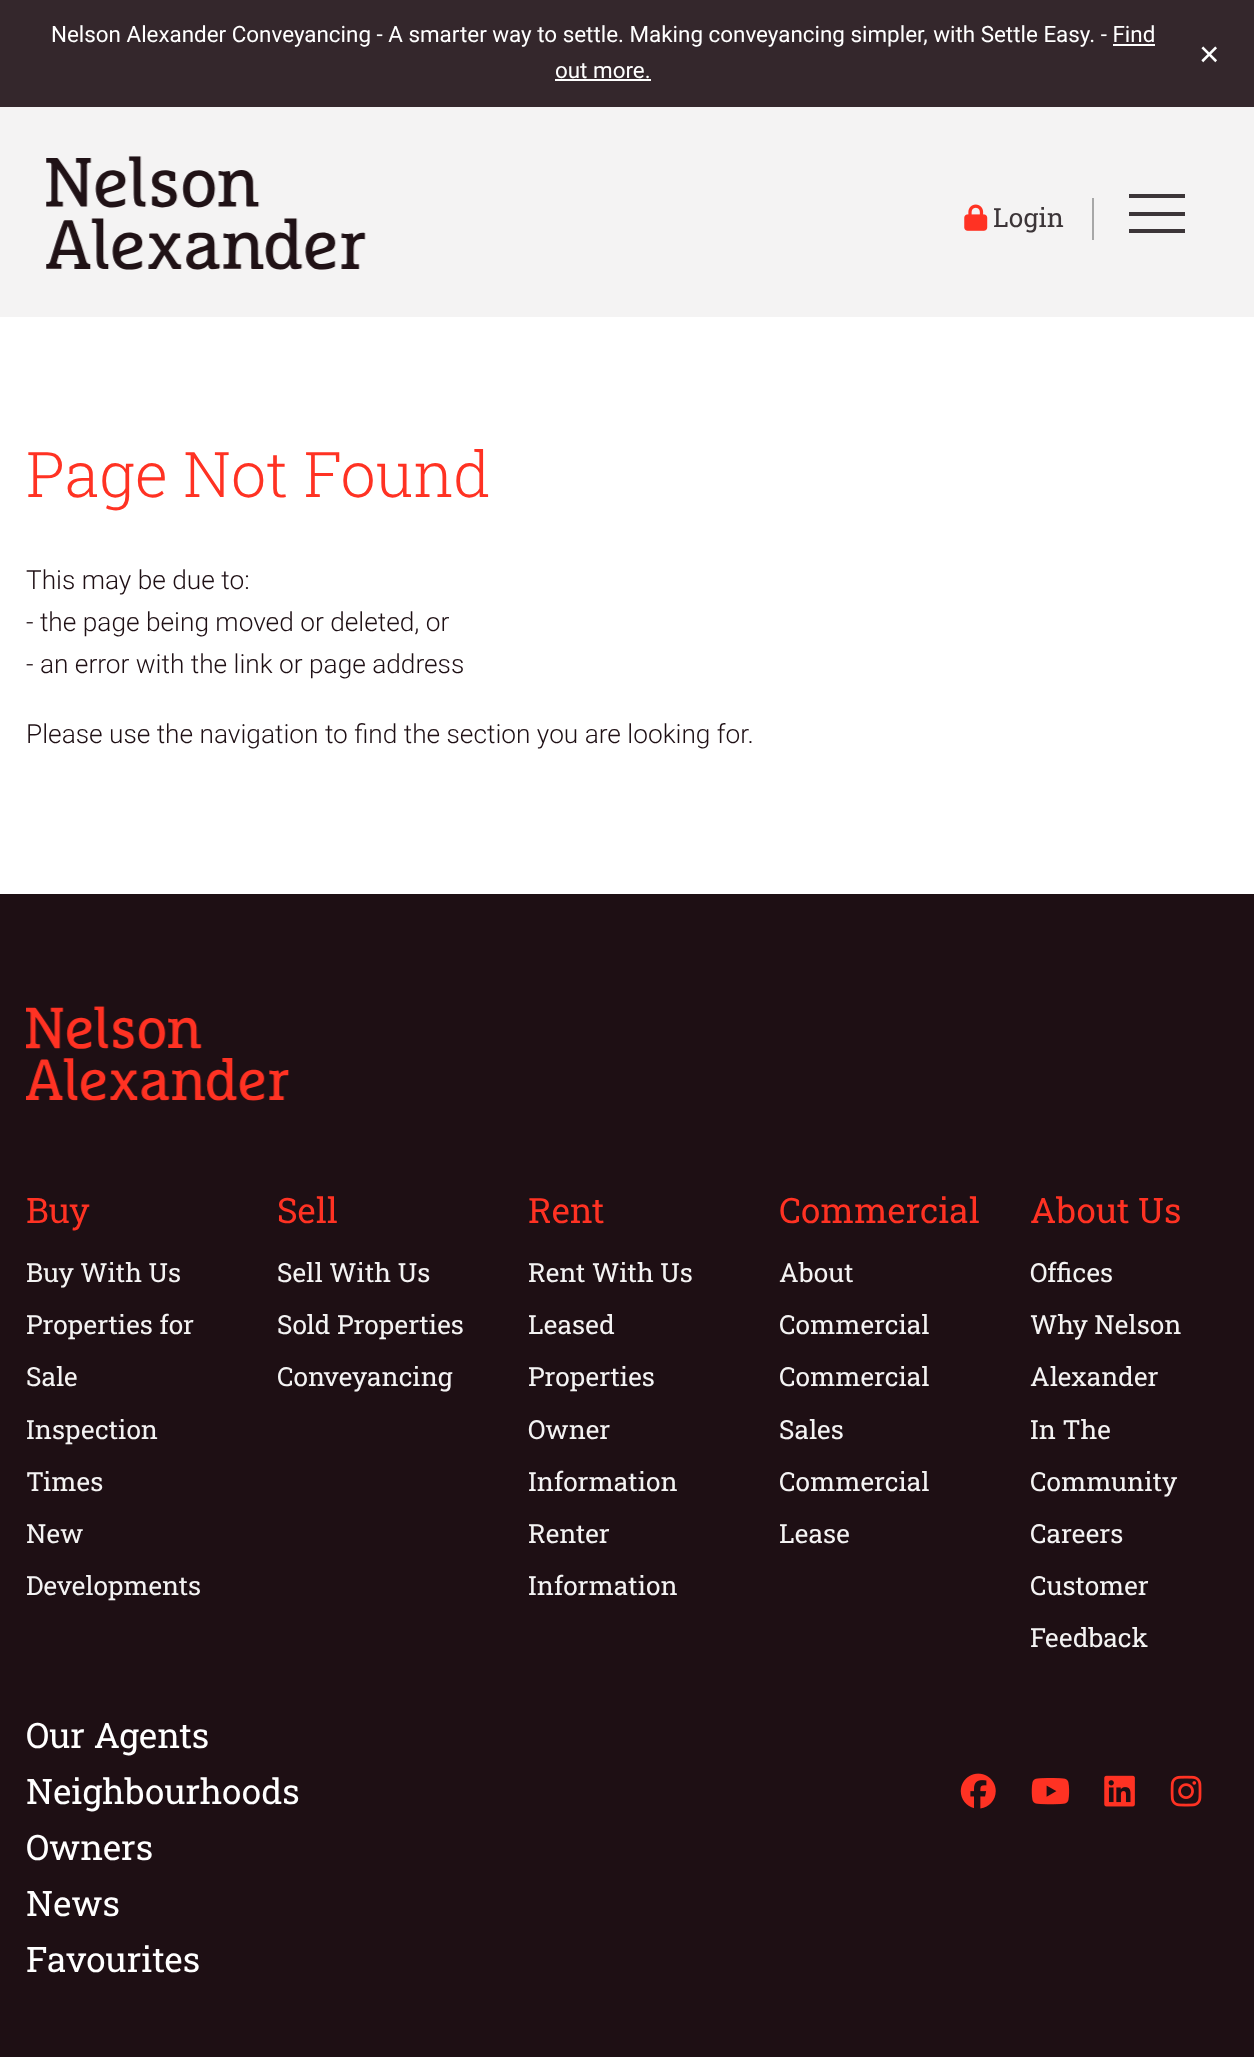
<svg xmlns="http://www.w3.org/2000/svg" width="1254" height="2057">
<rect width="100%" height="100%" fill="#fff"/>
<rect width="1254" height="107" fill="#34272c"/>
<text x="51" y="42" style="font-family:Roboto;font-size:22.4px;fill:#fff">Nelson Alexander Conveyancing - A smarter way to settle. Making conveyancing simpler, with Settle Easy. - Find</text>
<text x="555" y="78" style="font-family:Roboto;font-size:22.4px;fill:#fff">out more.</text>
<rect x="1113" y="44" width="42" height="2" fill="#fff"/>
<rect x="555" y="79" width="96" height="2" fill="#fff"/>
<text x="1199" y="66" style="font-family:Liberation Sans;font-size:35px;fill:#fff">×</text>
<rect y="107" width="1254" height="210" fill="#f4f3f3"/>
<rect x="1092" y="198" width="2" height="42" fill="#a7a7a7"/>
<image x="964" y="204" width="24" height="27" href="media/1.png"/>
<text x="993" y="227" style="font-family:Roboto Slab;font-size:26.25px;fill:#3c3538">Login</text>
<rect x="1129" y="229" width="56" height="4" fill="#3c3538"/>
<rect x="1129" y="212" width="56" height="4" fill="#3c3538"/>
<rect x="1129" y="194" width="56" height="4" fill="#3c3538"/>
<image x="46" y="156" width="320" height="114" href="media/2.png"/>
<text x="26" y="497" style="font-family:Roboto Slab;font-size:63px;font-weight:300;fill:#ff3223">Page Not Found</text>
<text x="26" y="589" style="font-family:Roboto;font-size:26.25px;font-weight:300;fill:#1e0f14">This may be due to:</text>
<text x="26" y="631" style="font-family:Roboto;font-size:26.25px;font-weight:300;fill:#1e0f14">- the page being moved or deleted, or</text>
<text x="26" y="673" style="font-family:Roboto;font-size:26.25px;font-weight:300;fill:#1e0f14">- an error with the link or page address</text>
<text x="26" y="743" style="font-family:Roboto;font-size:26.25px;font-weight:300;fill:#1e0f14">Please use the navigation to find the section you are looking for.</text>
<rect y="894" width="1254" height="1163" fill="#1e0f14"/>
<image x="26" y="1006" width="264" height="95" href="media/3.png"/>
<text x="26" y="1223" style="font-family:Roboto Slab;font-size:35px;fill:#ff3223">Buy</text>
<text x="26" y="1282" style="font-family:Roboto Slab;font-size:26.25px;fill:#f4f3f3">Buy With Us</text>
<text x="26" y="1334" style="font-family:Roboto Slab;font-size:26.25px;fill:#f4f3f3">Properties for</text>
<text x="26" y="1386" style="font-family:Roboto Slab;font-size:26.25px;fill:#f4f3f3">Sale</text>
<text x="26" y="1439" style="font-family:Roboto Slab;font-size:26.25px;fill:#f4f3f3">Inspection</text>
<text x="26" y="1491" style="font-family:Roboto Slab;font-size:26.25px;fill:#f4f3f3">Times</text>
<text x="26" y="1543" style="font-family:Roboto Slab;font-size:26.25px;fill:#f4f3f3">New</text>
<text x="26" y="1595" style="font-family:Roboto Slab;font-size:26.25px;fill:#f4f3f3">Developments</text>
<text x="277" y="1223" style="font-family:Roboto Slab;font-size:35px;fill:#ff3223">Sell</text>
<text x="277" y="1282" style="font-family:Roboto Slab;font-size:26.25px;fill:#f4f3f3">Sell With Us</text>
<text x="277" y="1334" style="font-family:Roboto Slab;font-size:26.25px;fill:#f4f3f3">Sold Properties</text>
<text x="277" y="1386" style="font-family:Roboto Slab;font-size:26.25px;fill:#f4f3f3">Conveyancing</text>
<text x="528" y="1223" style="font-family:Roboto Slab;font-size:35px;fill:#ff3223">Rent</text>
<text x="528" y="1282" style="font-family:Roboto Slab;font-size:26.25px;fill:#f4f3f3">Rent With Us</text>
<text x="528" y="1334" style="font-family:Roboto Slab;font-size:26.25px;fill:#f4f3f3">Leased</text>
<text x="528" y="1386" style="font-family:Roboto Slab;font-size:26.25px;fill:#f4f3f3">Properties</text>
<text x="528" y="1439" style="font-family:Roboto Slab;font-size:26.25px;fill:#f4f3f3">Owner</text>
<text x="528" y="1491" style="font-family:Roboto Slab;font-size:26.25px;fill:#f4f3f3">Information</text>
<text x="528" y="1543" style="font-family:Roboto Slab;font-size:26.25px;fill:#f4f3f3">Renter</text>
<text x="528" y="1595" style="font-family:Roboto Slab;font-size:26.25px;fill:#f4f3f3">Information</text>
<text x="779" y="1223" style="font-family:Roboto Slab;font-size:35px;fill:#ff3223">Commercial</text>
<text x="779" y="1282" style="font-family:Roboto Slab;font-size:26.25px;fill:#f4f3f3">About</text>
<text x="779" y="1334" style="font-family:Roboto Slab;font-size:26.25px;fill:#f4f3f3">Commercial</text>
<text x="779" y="1386" style="font-family:Roboto Slab;font-size:26.25px;fill:#f4f3f3">Commercial</text>
<text x="779" y="1439" style="font-family:Roboto Slab;font-size:26.25px;fill:#f4f3f3">Sales</text>
<text x="779" y="1491" style="font-family:Roboto Slab;font-size:26.25px;fill:#f4f3f3">Commercial</text>
<text x="779" y="1543" style="font-family:Roboto Slab;font-size:26.25px;fill:#f4f3f3">Lease</text>
<text x="1030" y="1223" style="font-family:Roboto Slab;font-size:35px;fill:#ff3223">About Us</text>
<text x="1030" y="1282" style="font-family:Roboto Slab;font-size:26.25px;fill:#f4f3f3">Offices</text>
<text x="1030" y="1334" style="font-family:Roboto Slab;font-size:26.25px;fill:#f4f3f3">Why Nelson</text>
<text x="1030" y="1386" style="font-family:Roboto Slab;font-size:26.25px;fill:#f4f3f3">Alexander</text>
<text x="1030" y="1439" style="font-family:Roboto Slab;font-size:26.25px;fill:#f4f3f3">In The</text>
<text x="1030" y="1491" style="font-family:Roboto Slab;font-size:26.25px;fill:#f4f3f3">Community</text>
<text x="1030" y="1543" style="font-family:Roboto Slab;font-size:26.25px;fill:#f4f3f3">Careers</text>
<text x="1030" y="1595" style="font-family:Roboto Slab;font-size:26.25px;fill:#f4f3f3">Customer</text>
<text x="1030" y="1647" style="font-family:Roboto Slab;font-size:26.25px;fill:#f4f3f3">Feedback</text>
<text x="26" y="1748" style="font-family:Roboto Slab;font-size:35px;fill:#fff">Our Agents</text>
<text x="26" y="1804" style="font-family:Roboto Slab;font-size:35px;fill:#fff">Neighbourhoods</text>
<text x="26" y="1860" style="font-family:Roboto Slab;font-size:35px;fill:#fff">Owners</text>
<text x="26" y="1916" style="font-family:Roboto Slab;font-size:35px;fill:#fff">News</text>
<text x="26" y="1972" style="font-family:Roboto Slab;font-size:35px;fill:#fff">Favourites</text>
<image x="960" y="1773" width="36" height="36" href="media/4.png"/>
<image x="1031" y="1778" width="39" height="27" href="media/5.png"/>
<image x="1104" y="1775" width="31" height="32" href="media/6.png"/>
<image x="1170" y="1775" width="32" height="32" href="media/7.png"/>
</svg>
